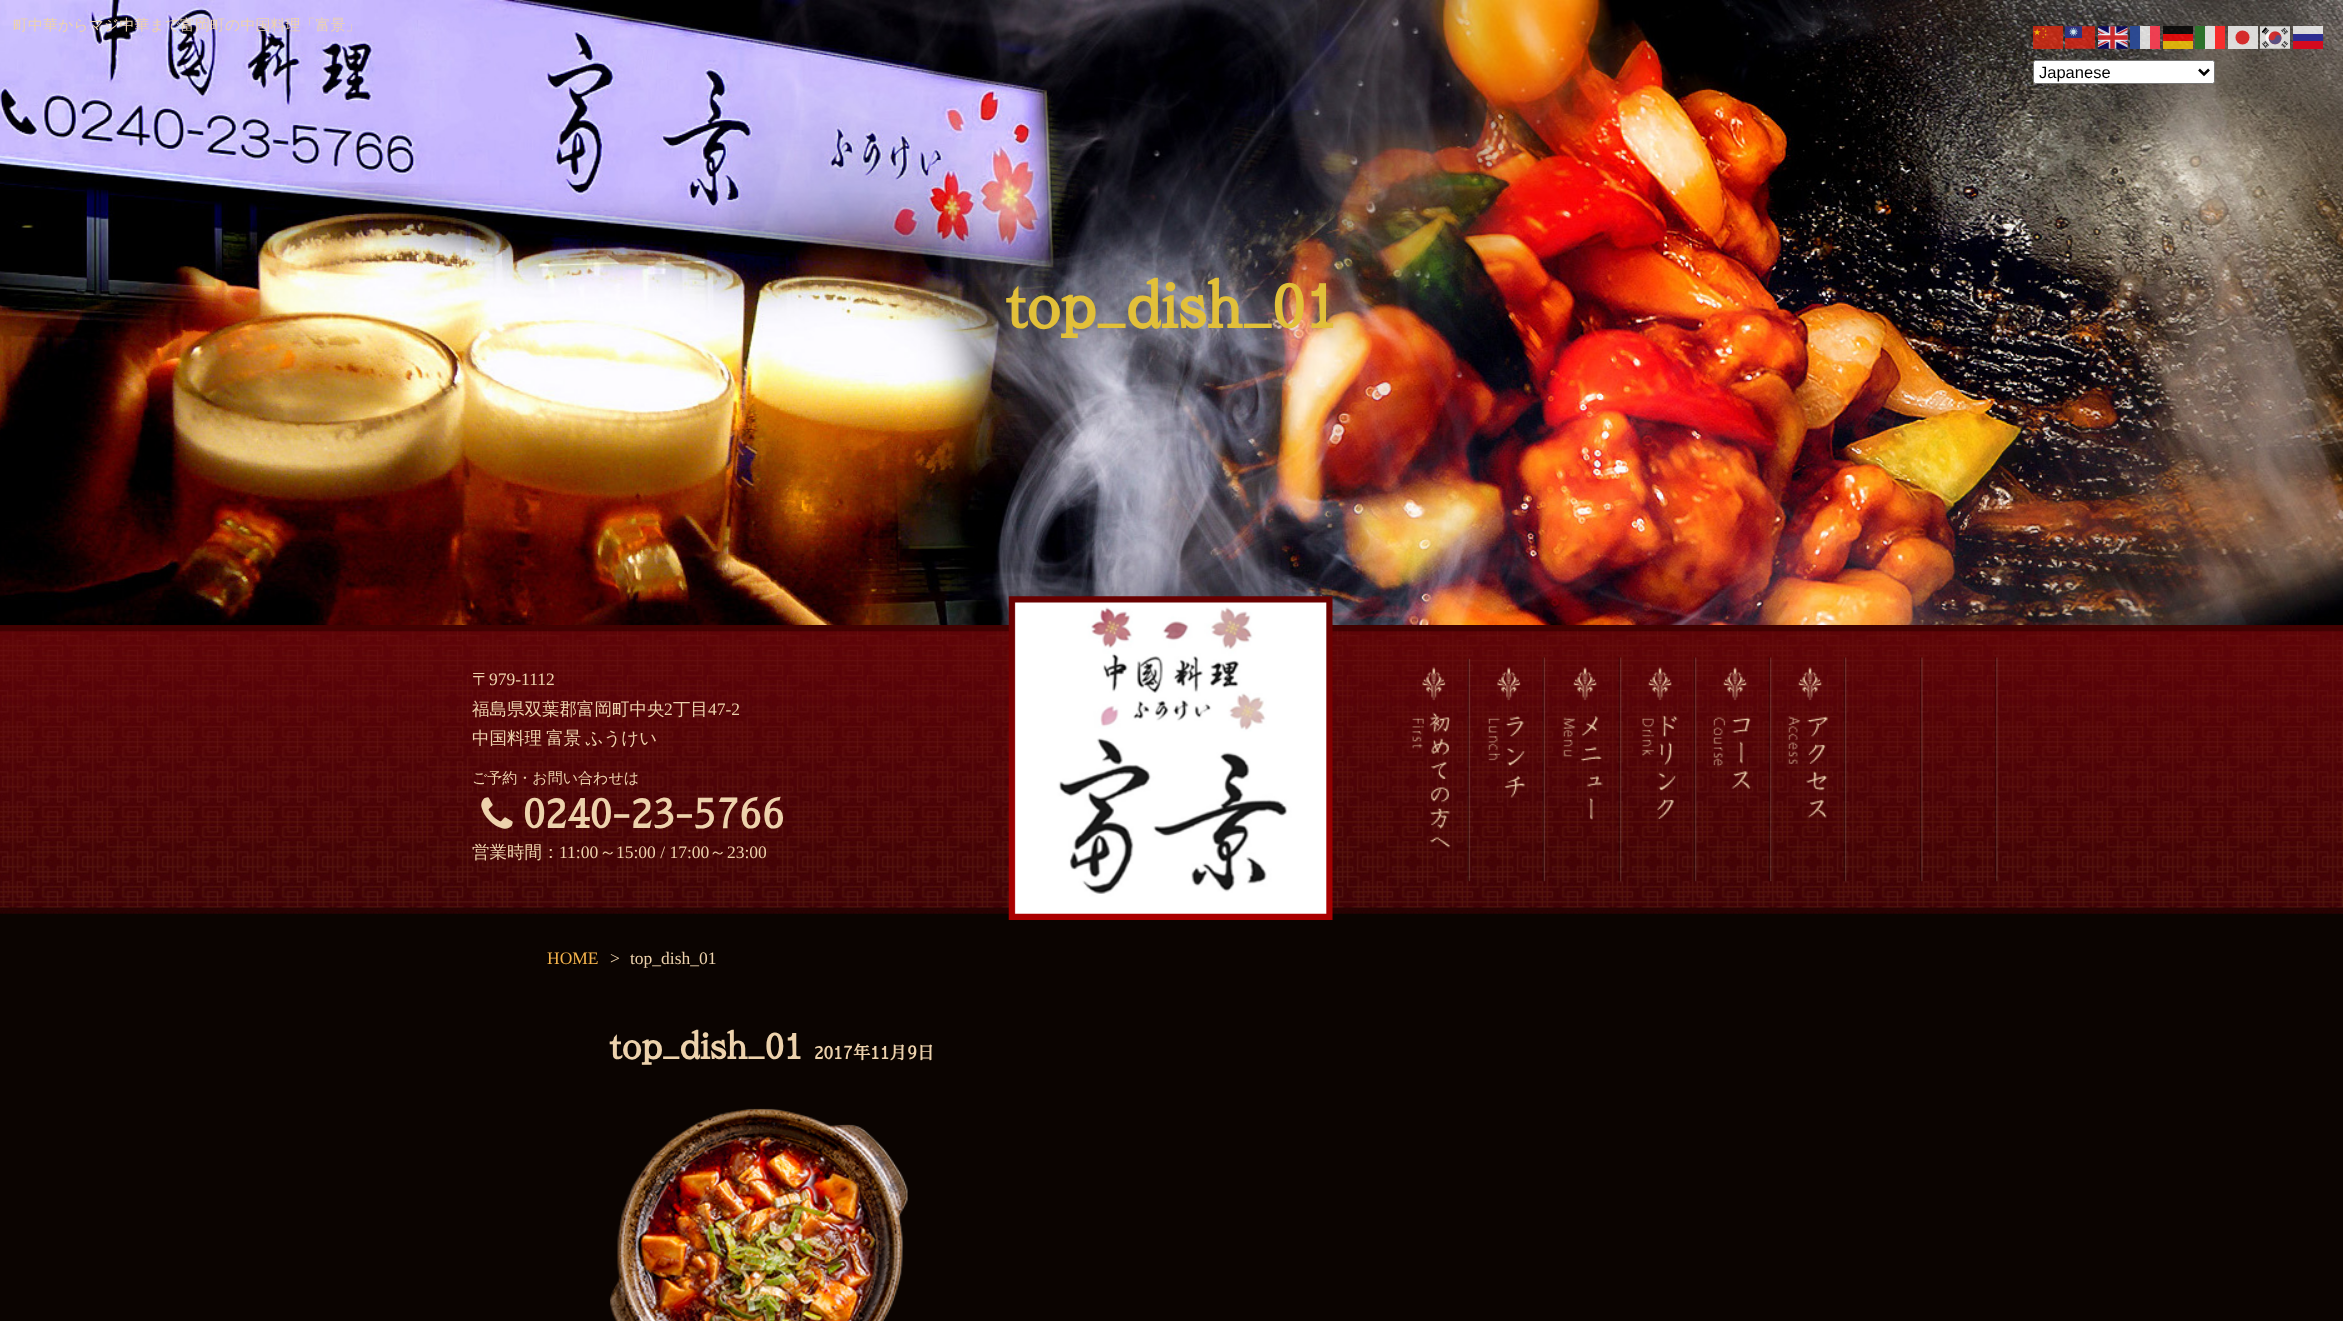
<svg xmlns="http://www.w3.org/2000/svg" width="2343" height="1321">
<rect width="100%" height="100%" fill="#0b0401"/>
<image x="0" y="0" width="2343" height="625" href="media/1.png"/>
<text x="13" y="30" style="font-family:WenQuanYi Zen Hei;font-size:15px;font-weight:500;fill:#edd2ac">町中華からマジ中華まで富岡町の中国料理「富景」</text>
<text x="1005" y="328" style="font-family:Sawarabi Mincho;font-size:60px;font-weight:bold;fill:#e2c039">top_dish_01</text>
<image x="0" y="625" width="2343" height="289" href="media/2.png"/>
<text x="472" y="685" style="font-family:WenQuanYi Zen Hei;font-size:17.5px;font-weight:500;fill:#edd2ac">〒</text>
<text x="489" y="685" style="font-family:Liberation Serif;font-size:17.5px;fill:#edd2ac">979-1112</text>
<text x="472" y="715" style="font-family:WenQuanYi Zen Hei;font-size:17.5px;font-weight:500;fill:#edd2ac">福島県双葉郡富岡町中央</text>
<text x="664" y="715" style="font-family:Liberation Serif;font-size:17.5px;fill:#edd2ac">2</text>
<text x="673" y="715" style="font-family:WenQuanYi Zen Hei;font-size:17.5px;font-weight:500;fill:#edd2ac">丁目</text>
<text x="708" y="715" style="font-family:Liberation Serif;font-size:17.5px;fill:#edd2ac">47-2</text>
<text x="472" y="744" word-spacing="-1" style="font-family:WenQuanYi Zen Hei;font-size:17.5px;font-weight:500;fill:#edd2ac">中国料理 富景 ふうけい</text>
<text x="472" y="783" style="font-family:WenQuanYi Zen Hei;font-size:15px;font-weight:500;fill:#edd2ac">ご予約・お問い合わせは</text>
<image x="481" y="797" width="32" height="32" href="media/3.png"/>
<text x="523" y="828" style="font-family:Sawarabi Mincho;font-size:40px;font-weight:bold;fill:#edd2ac">0240-23-5766</text>
<text x="472" y="858" style="font-family:WenQuanYi Zen Hei;font-size:17.5px;font-weight:500;fill:#edd2ac">営業時間：</text>
<text x="559" y="858" style="font-family:Liberation Serif;font-size:17.5px;fill:#edd2ac">11:00</text>
<text x="599" y="858" style="font-family:WenQuanYi Zen Hei;font-size:17.5px;font-weight:500;fill:#edd2ac">～</text>
<text x="616" y="858" style="font-family:Liberation Serif;font-size:17.5px;fill:#edd2ac">15:00 / 17:00</text>
<text x="709" y="858" style="font-family:WenQuanYi Zen Hei;font-size:17.5px;font-weight:500;fill:#edd2ac">～</text>
<text x="727" y="858" style="font-family:Liberation Serif;font-size:17.5px;fill:#edd2ac">23:00</text>
<image x="1467" y="657" width="531" height="225" href="media/4.png"/>
<image x="1008" y="596" width="325" height="324" href="media/5.png"/>
<image x="1412" y="667" width="39" height="181" href="media/6.png"/>
<image x="1488" y="667" width="38" height="131" href="media/7.png"/>
<image x="1563" y="667" width="40" height="153" href="media/8.png"/>
<image x="1642" y="667" width="36" height="152" href="media/9.png"/>
<image x="1713" y="667" width="38" height="122" href="media/10.png"/>
<image x="1788" y="667" width="40" height="151" href="media/11.png"/>
<text x="547" y="964" style="font-family:Liberation Serif;font-size:17.5px;fill:#f5b44c">HOME</text>
<text x="610" y="964" style="font-family:Liberation Serif;font-size:17.5px;fill:#edd2ac">&gt;</text>
<text x="630" y="964" style="font-family:Liberation Serif;font-size:17.5px;fill:#edd2ac">top_dish_01</text>
<image x="2033" y="26" width="30" height="23" href="media/12.png"/>
<image x="2065" y="26" width="30" height="23" href="media/13.png"/>
<image x="2098" y="26" width="30" height="23" href="media/14.png"/>
<rect x="2130" y="26" width="30" height="23" fill="#ffffffcc"/>
<rect x="2130" y="26" width="10" height="23" fill="#00267fcc"/>
<rect x="2150" y="26" width="10" height="23" fill="#f31830cc"/>
<rect x="2163" y="26" width="30" height="8" fill="#000000cc"/>
<rect x="2195" y="26" width="30" height="23" fill="#ffffffcc"/>
<rect x="2195" y="26" width="10" height="23" fill="#005700cc"/>
<rect x="2215" y="26" width="10" height="23" fill="#fc0000cc"/>
<rect x="2228" y="26" width="30" height="23" fill="#ffffffcc"/>
<image x="2260" y="26" width="30" height="23" href="media/15.png"/>
<rect x="2293" y="26" width="30" height="15" fill="#ffffffcc"/>
<rect x="2163" y="34" width="30" height="7" fill="#ff0000cc"/>
<circle cx="2242.5" cy="37.5" r="7" fill="#d30000cc"/>
<rect x="2293" y="34" width="30" height="7" fill="#01017ecc"/>
<rect x="2163" y="41" width="30" height="8" fill="#ffcc00cc"/>
<rect x="2293" y="41" width="30" height="8" fill="#d40a1e"/>
<rect x="2033.5" y="60.5" width="181" height="23" rx="2" fill="#fff" stroke="#767676"/>
<path d="M2199 69.5l5 5l5-5" fill="none" stroke="#000" stroke-width="2.5"/>
<text x="2039" y="78" style="font-family:Liberation Sans;font-size:16.5px;fill:#000">Japanese</text>
<text x="609" y="1059" style="font-family:Sawarabi Mincho;font-size:35px;font-weight:bold;fill:#edd2ac">top_dish_01</text>
<text x="814" y="1059" style="font-family:Sawarabi Mincho;font-size:17.5px;font-weight:bold;fill:#edd2ac">2017年11月9日</text>
<image x="610" y="1108" width="298" height="213" href="media/16.png"/>
</svg>
